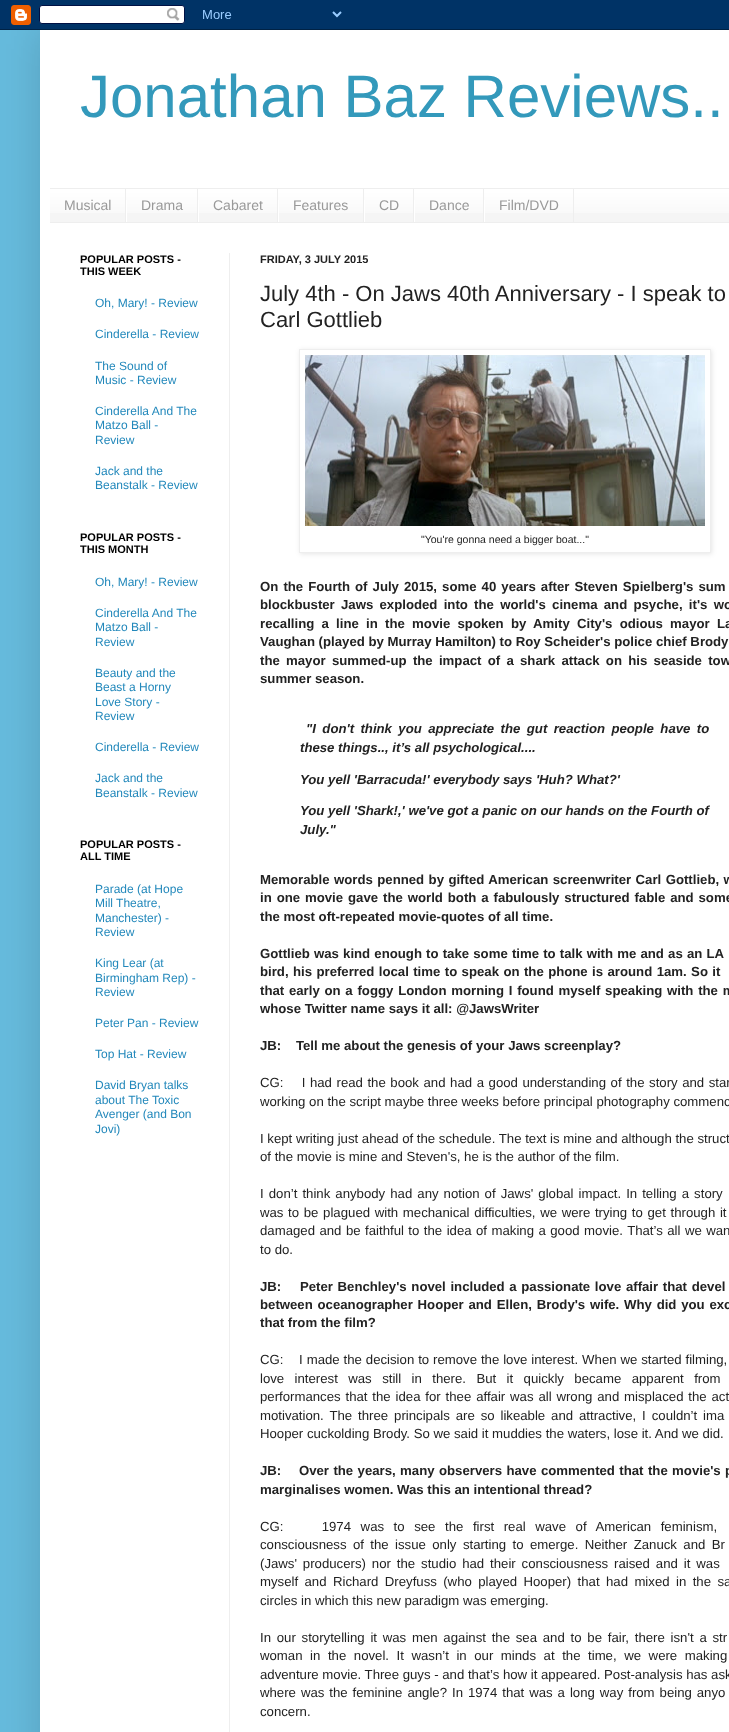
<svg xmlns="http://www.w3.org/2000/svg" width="729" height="1732">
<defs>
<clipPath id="clip1"><path d="M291 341h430v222h-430zm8 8h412v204h-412z" clip-rule="evenodd"/></clipPath>
</defs>
<rect width="100%" height="100%" fill="#6bd"/>
<rect x="40" y="30" width="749" height="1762" fill="#00000026" filter="blur(20px)"/>
<image x="0" y="0" width="729" height="30" href="media/1.png"/>
<rect x="40" y="30" width="689" height="1702" fill="#fff"/>
<text x="80" y="117" style="font-family:Liberation Sans;font-size:60px;fill:#39b">Jonathan Baz Reviews..</text>
<rect x="50" y="190" width="679" height="32" fill="#f5f5f5"/>
<image x="50" y="189" width="679" height="24" href="media/2.png"/>
<rect x="50" y="188" width="679" height="1" fill="#eee"/>
<rect x="50" y="222" width="679" height="1" fill="#eee"/>
<rect x="125" y="189" width="1" height="33" fill="#eee"/>
<text x="64" y="210" style="font-family:Liberation Sans;font-size:14px;fill:#999">Musical</text>
<rect x="197" y="189" width="1" height="33" fill="#eee"/>
<rect x="126" y="200" width="1" height="22" fill="#fff"/>
<text x="141" y="210" style="font-family:Liberation Sans;font-size:14px;fill:#999">Drama</text>
<rect x="277" y="189" width="1" height="33" fill="#eee"/>
<rect x="198" y="200" width="1" height="22" fill="#fff"/>
<text x="213" y="210" style="font-family:Liberation Sans;font-size:14px;fill:#999">Cabaret</text>
<rect x="363" y="189" width="1" height="33" fill="#eee"/>
<rect x="278" y="200" width="1" height="22" fill="#fff"/>
<text x="293" y="210" style="font-family:Liberation Sans;font-size:14px;fill:#999">Features</text>
<rect x="413" y="189" width="1" height="33" fill="#eee"/>
<rect x="364" y="200" width="1" height="22" fill="#fff"/>
<text x="379" y="210" style="font-family:Liberation Sans;font-size:14px;fill:#999">CD</text>
<rect x="483" y="189" width="1" height="33" fill="#eee"/>
<rect x="414" y="200" width="1" height="22" fill="#fff"/>
<text x="429" y="210" style="font-family:Liberation Sans;font-size:14px;fill:#999">Dance</text>
<rect x="573" y="189" width="1" height="33" fill="#eee"/>
<rect x="484" y="200" width="1" height="22" fill="#fff"/>
<text x="499" y="210" style="font-family:Liberation Sans;font-size:14px;fill:#999">Film/DVD</text>
<rect x="229" y="253" width="1" height="1479" fill="#eee"/>
<text x="80" y="263" style="font-family:Liberation Sans;font-size:11px;font-weight:bold;fill:#000">POPULAR POSTS -</text>
<text x="80" y="275" style="font-family:Liberation Sans;font-size:11px;font-weight:bold;fill:#000">THIS WEEK</text>
<text x="95" y="307" style="font-family:Liberation Sans;font-size:12px;fill:#28b">Oh, Mary! - Review</text>
<text x="95" y="338" style="font-family:Liberation Sans;font-size:12px;fill:#28b">Cinderella - Review</text>
<text x="95" y="370" style="font-family:Liberation Sans;font-size:12px;fill:#28b">The Sound of</text>
<text x="95" y="384" style="font-family:Liberation Sans;font-size:12px;fill:#28b">Music - Review</text>
<text x="95" y="415" style="font-family:Liberation Sans;font-size:12px;fill:#28b">Cinderella And The</text>
<text x="95" y="429" style="font-family:Liberation Sans;font-size:12px;fill:#28b">Matzo Ball -</text>
<text x="95" y="444" style="font-family:Liberation Sans;font-size:12px;fill:#28b">Review</text>
<text x="95" y="475" style="font-family:Liberation Sans;font-size:12px;fill:#28b">Jack and the</text>
<text x="95" y="489" style="font-family:Liberation Sans;font-size:12px;fill:#28b">Beanstalk - Review</text>
<text x="80" y="541" style="font-family:Liberation Sans;font-size:11px;font-weight:bold;fill:#000">POPULAR POSTS -</text>
<text x="80" y="553" style="font-family:Liberation Sans;font-size:11px;font-weight:bold;fill:#000">THIS MONTH</text>
<text x="95" y="586" style="font-family:Liberation Sans;font-size:12px;fill:#28b">Oh, Mary! - Review</text>
<text x="95" y="617" style="font-family:Liberation Sans;font-size:12px;fill:#28b">Cinderella And The</text>
<text x="95" y="631" style="font-family:Liberation Sans;font-size:12px;fill:#28b">Matzo Ball -</text>
<text x="95" y="646" style="font-family:Liberation Sans;font-size:12px;fill:#28b">Review</text>
<text x="95" y="677" style="font-family:Liberation Sans;font-size:12px;fill:#28b">Beauty and the</text>
<text x="95" y="691" style="font-family:Liberation Sans;font-size:12px;fill:#28b">Beast a Horny</text>
<text x="95" y="706" style="font-family:Liberation Sans;font-size:12px;fill:#28b">Love Story -</text>
<text x="95" y="720" style="font-family:Liberation Sans;font-size:12px;fill:#28b">Review</text>
<text x="95" y="751" style="font-family:Liberation Sans;font-size:12px;fill:#28b">Cinderella - Review</text>
<text x="95" y="782" style="font-family:Liberation Sans;font-size:12px;fill:#28b">Jack and the</text>
<text x="95" y="797" style="font-family:Liberation Sans;font-size:12px;fill:#28b">Beanstalk - Review</text>
<text x="80" y="848" style="font-family:Liberation Sans;font-size:11px;font-weight:bold;fill:#000">POPULAR POSTS -</text>
<text x="80" y="860" style="font-family:Liberation Sans;font-size:11px;font-weight:bold;fill:#000">ALL TIME</text>
<text x="95" y="893" style="font-family:Liberation Sans;font-size:12px;fill:#28b">Parade (at Hope</text>
<text x="95" y="907" style="font-family:Liberation Sans;font-size:12px;fill:#28b">Mill Theatre,</text>
<text x="95" y="922" style="font-family:Liberation Sans;font-size:12px;fill:#28b">Manchester) -</text>
<text x="95" y="936" style="font-family:Liberation Sans;font-size:12px;fill:#28b">Review</text>
<text x="95" y="967" style="font-family:Liberation Sans;font-size:12px;fill:#28b">King Lear (at</text>
<text x="95" y="982" style="font-family:Liberation Sans;font-size:12px;fill:#28b">Birmingham Rep) -</text>
<text x="95" y="996" style="font-family:Liberation Sans;font-size:12px;fill:#28b">Review</text>
<text x="95" y="1027" style="font-family:Liberation Sans;font-size:12px;fill:#28b">Peter Pan - Review</text>
<text x="95" y="1058" style="font-family:Liberation Sans;font-size:12px;fill:#28b">Top Hat - Review</text>
<text x="95" y="1089" style="font-family:Liberation Sans;font-size:12px;fill:#28b">David Bryan talks</text>
<text x="95" y="1104" style="font-family:Liberation Sans;font-size:12px;fill:#28b">about The Toxic</text>
<text x="95" y="1118" style="font-family:Liberation Sans;font-size:12px;fill:#28b">Avenger (and Bon</text>
<text x="95" y="1133" style="font-family:Liberation Sans;font-size:12px;fill:#28b">Jovi)</text>
<text x="260" y="263" style="font-family:Liberation Sans;font-size:11px;font-weight:bold;fill:#222">FRIDAY, 3 JULY 2015</text>
<text x="260" y="301" style="font-family:Liberation Sans;font-size:22px;fill:#222">July 4th - On Jaws 40th Anniversary - I speak to</text>
<text x="260" y="327" style="font-family:Liberation Sans;font-size:22px;fill:#222">Carl Gottlieb</text>
<g clip-path="url(#clip1)">
<rect x="300" y="350" width="412" height="204" fill="#0000001a" filter="blur(2.5px)"/>
</g>
<rect x="299.5" y="349.5" width="411" height="203" fill="none" stroke="#eee"/>
<image x="305" y="355" width="400" height="171" href="media/3.png"/>
<text x="421" y="543" style="font-family:Liberation Sans;font-size:10.5px;fill:#222">"You're gonna need a bigger boat..."</text>
<text x="260" y="591" word-spacing="1.4" style="font-family:Liberation Sans;font-size:13.2px;font-weight:bold;fill:#222">On the Fourth of July 2015, some 40 years after Steven Spielberg's sum</text>
<text x="260" y="609" word-spacing="2.6" style="font-family:Liberation Sans;font-size:13.2px;font-weight:bold;fill:#222">blockbuster Jaws exploded into the world's cinema and psyche, it's wo</text>
<text x="260" y="628" word-spacing="3.6" style="font-family:Liberation Sans;font-size:13.2px;font-weight:bold;fill:#222">recalling a line in the movie spoken by Amity City's odious mayor La</text>
<text x="260" y="646" style="font-family:Liberation Sans;font-size:13.2px;font-weight:bold;fill:#222">Vaughan (played by Murray Hamilton) to Roy Scheider's police chief Brody</text>
<text x="260" y="665" word-spacing="2.6" style="font-family:Liberation Sans;font-size:13.2px;font-weight:bold;fill:#222">the mayor summed-up the impact of a shark attack on his seaside tow</text>
<text x="260" y="683" style="font-family:Liberation Sans;font-size:13.2px;font-weight:bold;fill:#222">summer season.</text>
<text x="306" y="733" word-spacing="2.75" style="font-family:Liberation Sans;font-size:13.2px;font-weight:bold;font-style:italic;fill:#222">"I don't think you appreciate the gut reaction people have to</text>
<text x="300" y="752" style="font-family:Liberation Sans;font-size:13.2px;font-weight:bold;font-style:italic;fill:#222">these things.., it’s all psychological....</text>
<text x="300" y="784" style="font-family:Liberation Sans;font-size:13.2px;font-weight:bold;font-style:italic;fill:#222">You yell 'Barracuda!' everybody says 'Huh? What?'</text>
<text x="300" y="815" style="font-family:Liberation Sans;font-size:13.2px;font-weight:bold;font-style:italic;fill:#222">You yell 'Shark!,' we've got a panic on our hands on the Fourth of</text>
<text x="300" y="834" style="font-family:Liberation Sans;font-size:13.2px;font-weight:bold;font-style:italic;fill:#222">July."</text>
<text x="260" y="884" word-spacing="0.75" style="font-family:Liberation Sans;font-size:13.2px;font-weight:bold;fill:#222">Memorable words penned by gifted American screenwriter Carl Gottlieb, w</text>
<text x="260" y="902" word-spacing="1.25" style="font-family:Liberation Sans;font-size:13.2px;font-weight:bold;fill:#222">in one movie gave the world both a fabulously structured fable and some</text>
<text x="260" y="921" style="font-family:Liberation Sans;font-size:13.2px;font-weight:bold;fill:#222">the most oft-repeated movie-quotes of all time.</text>
<text x="260" y="958" word-spacing="0.5" style="font-family:Liberation Sans;font-size:13.2px;font-weight:bold;fill:#222">Gottlieb was kind enough to take some time to talk with me and as an LA</text>
<text x="260" y="976" word-spacing="0.75" style="font-family:Liberation Sans;font-size:13.2px;font-weight:bold;fill:#222">bird, his preferred local time to speak on the phone is around 1am. So it</text>
<text x="260" y="995" word-spacing="1.1" style="font-family:Liberation Sans;font-size:13.2px;font-weight:bold;fill:#222">that early on a foggy London morning I found myself speaking with the m</text>
<text x="260" y="1013" style="font-family:Liberation Sans;font-size:13.2px;font-weight:bold;fill:#222">whose Twitter name says it all: @JawsWriter</text>
<text x="260" y="1050" style="font-family:Liberation Sans;font-size:13.2px;font-weight:bold;fill:#222" xml:space="preserve">JB:    Tell me about the genesis of your Jaws screenplay?</text>
<text x="260" y="1087" word-spacing="0.9" style="font-family:Liberation Sans;font-size:13.2px;fill:#222" xml:space="preserve">CG:    I had read the book and had a good understanding of the story and star</text>
<text x="260" y="1106" style="font-family:Liberation Sans;font-size:13.2px;fill:#222">working on the script maybe three weeks before principal photography commenc</text>
<text x="260" y="1143" style="font-family:Liberation Sans;font-size:13.2px;fill:#222">I kept writing just ahead of the schedule. The text is mine and although the struct</text>
<text x="260" y="1161" style="font-family:Liberation Sans;font-size:13.2px;fill:#222">of the movie is mine and Steven's, he is the author of the film.</text>
<text x="260" y="1198" word-spacing="1.4" style="font-family:Liberation Sans;font-size:13.2px;fill:#222">I don’t think anybody had any notion of Jaws' global impact. In telling a story</text>
<text x="260" y="1217" word-spacing="1" style="font-family:Liberation Sans;font-size:13.2px;fill:#222">was to be plagued with mechanical difficulties, we were trying to get through it</text>
<text x="260" y="1235" word-spacing="0.8" style="font-family:Liberation Sans;font-size:13.2px;fill:#222">damaged and be faithful to the idea of making a good movie. That’s all we wan</text>
<text x="260" y="1254" style="font-family:Liberation Sans;font-size:13.2px;fill:#222">to do.</text>
<text x="260" y="1291" word-spacing="1" style="font-family:Liberation Sans;font-size:13.2px;font-weight:bold;fill:#222" xml:space="preserve">JB:    Peter Benchley's novel included a passionate love affair that devel</text>
<text x="260" y="1309" word-spacing="1.1" style="font-family:Liberation Sans;font-size:13.2px;font-weight:bold;fill:#222">between oceanographer Hooper and Ellen, Brody's wife. Why did you exc</text>
<text x="260" y="1327" style="font-family:Liberation Sans;font-size:13.2px;font-weight:bold;fill:#222">that from the film?</text>
<text x="260" y="1364" word-spacing="0.25" style="font-family:Liberation Sans;font-size:13.2px;fill:#222" xml:space="preserve">CG:    I made the decision to remove the love interest. When we started filming,</text>
<text x="260" y="1383" word-spacing="6.75" style="font-family:Liberation Sans;font-size:13.2px;fill:#222">love interest was still in there. But it quickly became apparent from</text>
<text x="260" y="1401" word-spacing="1.2" style="font-family:Liberation Sans;font-size:13.2px;fill:#222">performances that the idea for thee affair was all wrong and misplaced the act</text>
<text x="260" y="1420" word-spacing="2.25" style="font-family:Liberation Sans;font-size:13.2px;fill:#222">motivation. The three principals are so likeable and attractive, I couldn’t ima</text>
<text x="260" y="1438" style="font-family:Liberation Sans;font-size:13.2px;fill:#222">Hooper cuckolding Brody. So we said it muddies the waters, lose it. And we did.</text>
<text x="260" y="1475" word-spacing="0.75" style="font-family:Liberation Sans;font-size:13.2px;font-weight:bold;fill:#222" xml:space="preserve">JB:    Over the years, many observers have commented that the movie's p</text>
<text x="260" y="1494" style="font-family:Liberation Sans;font-size:13.2px;font-weight:bold;fill:#222">marginalises women. Was this an intentional thread?</text>
<text x="260" y="1531" word-spacing="5.9" style="font-family:Liberation Sans;font-size:13.2px;fill:#222" xml:space="preserve">CG:    1974 was to see the first real wave of American feminism,</text>
<text x="260" y="1549" word-spacing="2.75" style="font-family:Liberation Sans;font-size:13.2px;fill:#222">consciousness of the issue only starting to emerge. Neither Zanuck and Br</text>
<text x="260" y="1568" word-spacing="2.25" style="font-family:Liberation Sans;font-size:13.2px;fill:#222">(Jaws' producers) nor the studio had their consciousness raised and it was</text>
<text x="260" y="1586" word-spacing="2.75" style="font-family:Liberation Sans;font-size:13.2px;fill:#222">myself and Richard Dreyfuss (who played Hooper) that had mixed in the sa</text>
<text x="260" y="1605" style="font-family:Liberation Sans;font-size:13.2px;fill:#222">circles in which this new paradigm was emerging.</text>
<text x="260" y="1642" word-spacing="2.1" style="font-family:Liberation Sans;font-size:13.2px;fill:#222">In our storytelling it was men against the sea and to be fair, there isn't a str</text>
<text x="260" y="1660" word-spacing="3.9" style="font-family:Liberation Sans;font-size:13.2px;fill:#222">woman in the novel. It wasn’t in our minds at the time, we were making</text>
<text x="260" y="1679" style="font-family:Liberation Sans;font-size:13.2px;fill:#222">adventure movie. Three guys - and that’s how it appeared. Post-analysis has ask</text>
<text x="260" y="1697" word-spacing="1.3" style="font-family:Liberation Sans;font-size:13.2px;fill:#222">where was the feminine angle? In 1974 that was a long way from being anyo</text>
<text x="260" y="1716" style="font-family:Liberation Sans;font-size:13.2px;fill:#222">concern.</text>
</svg>
